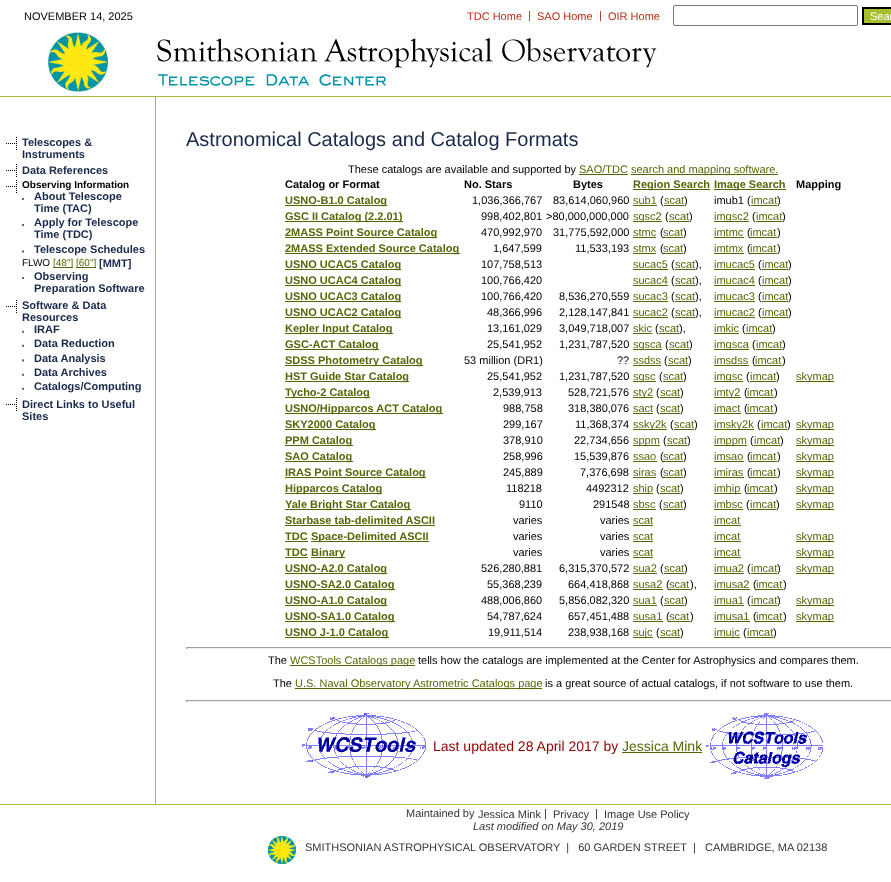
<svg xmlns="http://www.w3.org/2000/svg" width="891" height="882">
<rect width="100%" height="100%" fill="#fff"/>
<rect y="96" width="891" height="1" fill="#a6bf2e"/>
<text x="24" y="20" style="font-family:Liberation Sans;font-size:11px;fill:#000">NOVEMBER 14, 2025</text>
<text x="467" y="20" style="font-family:Liberation Sans;font-size:11px;fill:#ba2c11">TDC Home</text>
<text x="528" y="19" style="font-family:Liberation Sans;font-size:11px;fill:#ba2c11">|</text>
<text x="537" y="20" style="font-family:Liberation Sans;font-size:11px;fill:#ba2c11">SAO Home</text>
<text x="599" y="19" style="font-family:Liberation Sans;font-size:11px;fill:#ba2c11">|</text>
<text x="608" y="20" style="font-family:Liberation Sans;font-size:11px;fill:#ba2c11">OIR Home</text>
<rect x="673.5" y="5.5" width="184" height="20" rx="1.5" fill="none" stroke="#767676"/>
<rect x="863" y="8" width="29" height="16" fill="#a6bf2e" stroke="#000" stroke-width="2"/>
<text x="870" y="20" style="font-family:Liberation Sans;font-size:11px;fill:#fff">Sear</text>
<image x="48" y="32" width="60" height="60" href="media/1.png"/>
<image x="157" y="38" width="500" height="48" href="media/2.png"/>
<image x="6" y="137" width="11" height="13" href="media/3.png"/>
<text x="22" y="146" style="font-family:Liberation Sans;font-size:11px;font-weight:bold;fill:#19294b">Telescopes &amp;</text>
<text x="22" y="158" style="font-family:Liberation Sans;font-size:11px;font-weight:bold;fill:#19294b">Instruments</text>
<image x="6" y="164" width="11" height="13" href="media/3.png"/>
<text x="22" y="174" style="font-family:Liberation Sans;font-size:11px;font-weight:bold;fill:#19294b">Data References</text>
<image x="6" y="180" width="11" height="13" href="media/3.png"/>
<text x="22" y="188" style="font-family:Liberation Sans;font-size:10px;font-weight:bold;fill:#000">Observing Information</text>
<rect x="22" y="198" width="2" height="2" fill="#666"/>
<text x="34" y="200" style="font-family:Liberation Sans;font-size:11px;font-weight:bold;fill:#19294b">About Telescope</text>
<text x="34" y="212" style="font-family:Liberation Sans;font-size:11px;font-weight:bold;fill:#19294b">Time (TAC)</text>
<rect x="22" y="224" width="2" height="2" fill="#666"/>
<text x="34" y="226" style="font-family:Liberation Sans;font-size:11px;font-weight:bold;fill:#19294b">Apply for Telescope</text>
<text x="34" y="238" style="font-family:Liberation Sans;font-size:11px;font-weight:bold;fill:#19294b">Time (TDC)</text>
<image x="22" y="250" width="2" height="3" href="media/4.png"/>
<text x="34" y="253" style="font-family:Liberation Sans;font-size:11px;font-weight:bold;fill:#19294b">Telescope Schedules</text>
<text x="22" y="266" style="font-family:Liberation Sans;font-size:10px;fill:#000">FLWO</text>
<rect x="53" y="267" width="20" height="1" fill="#556606"/>
<text x="53" y="266" style="font-family:Liberation Sans;font-size:10px;fill:#556606">[48"]</text>
<rect x="76" y="267" width="20" height="1" fill="#556606"/>
<text x="76" y="266" style="font-family:Liberation Sans;font-size:10px;fill:#556606">[60"]</text>
<text x="99" y="267" style="font-family:Liberation Sans;font-size:11px;font-weight:bold;fill:#19294b">[MMT]</text>
<rect x="22" y="277" width="2" height="2" fill="#666"/>
<text x="34" y="280" style="font-family:Liberation Sans;font-size:11px;font-weight:bold;fill:#19294b">Observing</text>
<text x="34" y="292" style="font-family:Liberation Sans;font-size:11px;font-weight:bold;fill:#19294b">Preparation Software</text>
<image x="6" y="300" width="11" height="13" href="media/3.png"/>
<text x="22" y="309" style="font-family:Liberation Sans;font-size:11px;font-weight:bold;fill:#19294b">Software &amp; Data</text>
<text x="22" y="321" style="font-family:Liberation Sans;font-size:11px;font-weight:bold;fill:#19294b">Resources</text>
<image x="22" y="330" width="2" height="3" href="media/5.png"/>
<text x="34" y="333" style="font-family:Liberation Sans;font-size:11px;font-weight:bold;fill:#19294b">IRAF</text>
<image x="22" y="344" width="2" height="3" href="media/5.png"/>
<text x="34" y="347" style="font-family:Liberation Sans;font-size:11px;font-weight:bold;fill:#19294b">Data Reduction</text>
<image x="22" y="359" width="2" height="3" href="media/4.png"/>
<text x="34" y="362" style="font-family:Liberation Sans;font-size:11px;font-weight:bold;fill:#19294b">Data Analysis</text>
<image x="22" y="373" width="2" height="3" href="media/5.png"/>
<text x="34" y="376" style="font-family:Liberation Sans;font-size:11px;font-weight:bold;fill:#19294b">Data Archives</text>
<image x="22" y="387" width="2" height="3" href="media/5.png"/>
<text x="34" y="390" style="font-family:Liberation Sans;font-size:11px;font-weight:bold;fill:#19294b">Catalogs/Computing</text>
<image x="6" y="398" width="11" height="13" href="media/3.png"/>
<text x="22" y="408" style="font-family:Liberation Sans;font-size:11px;font-weight:bold;fill:#19294b">Direct Links to Useful</text>
<text x="22" y="420" style="font-family:Liberation Sans;font-size:11px;font-weight:bold;fill:#19294b">Sites</text>
<rect y="804" width="891" height="1" fill="#a6bf2e"/>
<rect x="155" y="97" width="1" height="708" fill="#a6bf2e"/>
<text x="186" y="146" style="font-family:Liberation Sans;font-size:20px;fill:#19294b">Astronomical Catalogs and Catalog Formats</text>
<text x="348" y="173" style="font-family:Liberation Sans;font-size:11px;fill:#000">These catalogs are available and supported by</text>
<text x="579" y="173" style="font-family:Liberation Sans;font-size:11px;fill:#556606">SAO/TDC</text>
<rect x="579" y="174" width="49" height="1" fill="#556606"/>
<rect x="631" y="174" width="147" height="1" fill="#556606"/>
<text x="631" y="173" style="font-family:Liberation Sans;font-size:11px;fill:#556606">search and mapping software.</text>
<text x="285" y="188" style="font-family:Liberation Sans;font-size:11px;font-weight:bold;fill:#000">Catalog or Format</text>
<text x="464" y="188" style="font-family:Liberation Sans;font-size:11px;font-weight:bold;fill:#000">No. Stars</text>
<text x="573" y="188" style="font-family:Liberation Sans;font-size:11px;font-weight:bold;fill:#000">Bytes</text>
<rect x="633" y="189" width="77" height="1" fill="#556606"/>
<text x="633" y="188" style="font-family:Liberation Sans;font-size:11px;font-weight:bold;fill:#556606">Region Search</text>
<rect x="714" y="189" width="72" height="1" fill="#556606"/>
<text x="714" y="188" style="font-family:Liberation Sans;font-size:11px;font-weight:bold;fill:#556606">Image Search</text>
<text x="796" y="188" style="font-family:Liberation Sans;font-size:11px;font-weight:bold;fill:#000">Mapping</text>
<rect x="285" y="205" width="102" height="1" fill="#556606"/>
<text x="285" y="204" style="font-family:Liberation Sans;font-size:11px;font-weight:bold;fill:#556606">USNO-B1.0 Catalog</text>
<text x="472" y="204" style="font-family:Liberation Sans;font-size:11px;fill:#000">1,036,366,767</text>
<text x="553" y="204" style="font-family:Liberation Sans;font-size:11px;fill:#000">83,614,060,960</text>
<text x="633" y="204" style="font-family:Liberation Sans;font-size:11px;fill:#556606">sub1</text>
<rect x="633" y="205" width="24" height="1" fill="#556606"/>
<text x="660" y="204" style="font-family:Liberation Sans;font-size:11px;fill:#000">(</text>
<text x="664" y="204" style="font-family:Liberation Sans;font-size:11px;fill:#556606">scat</text>
<rect x="664" y="205" width="20" height="1" fill="#556606"/>
<text x="684" y="204" style="font-family:Liberation Sans;font-size:11px;fill:#000">)</text>
<text x="714" y="204" style="font-family:Liberation Sans;font-size:11px;fill:#000">imub1 (</text>
<text x="751" y="204" style="font-family:Liberation Sans;font-size:11px;fill:#556606">imcat</text>
<rect x="751" y="205" width="26" height="1" fill="#556606"/>
<text x="777" y="204" style="font-family:Liberation Sans;font-size:11px;fill:#000">)</text>
<rect x="285" y="221" width="118" height="1" fill="#556606"/>
<text x="285" y="220" style="font-family:Liberation Sans;font-size:11px;font-weight:bold;fill:#556606">GSC II Catalog (2.2.01)</text>
<text x="481" y="220" style="font-family:Liberation Sans;font-size:11px;fill:#000">998,402,801</text>
<text x="546" y="220" style="font-family:Liberation Sans;font-size:11px;fill:#000">&gt;80,000,000,000</text>
<rect x="633" y="221" width="29" height="1" fill="#556606"/>
<text x="633" y="220" style="font-family:Liberation Sans;font-size:11px;fill:#556606">sgsc2</text>
<text x="665" y="220" style="font-family:Liberation Sans;font-size:11px;fill:#000">(</text>
<text x="669" y="220" style="font-family:Liberation Sans;font-size:11px;fill:#556606">scat</text>
<rect x="669" y="221" width="20" height="1" fill="#556606"/>
<text x="689" y="220" style="font-family:Liberation Sans;font-size:11px;fill:#000">)</text>
<rect x="714" y="221" width="35" height="1" fill="#556606"/>
<text x="714" y="220" style="font-family:Liberation Sans;font-size:11px;fill:#556606">imgsc2</text>
<text x="752" y="220" style="font-family:Liberation Sans;font-size:11px;fill:#000">(</text>
<text x="756" y="220" style="font-family:Liberation Sans;font-size:11px;fill:#556606">imcat</text>
<rect x="756" y="221" width="26" height="1" fill="#556606"/>
<text x="782" y="220" style="font-family:Liberation Sans;font-size:11px;fill:#000">)</text>
<rect x="285" y="237" width="152" height="1" fill="#556606"/>
<text x="285" y="236" style="font-family:Liberation Sans;font-size:11px;font-weight:bold;fill:#556606">2MASS Point Source Catalog</text>
<text x="481" y="236" style="font-family:Liberation Sans;font-size:11px;fill:#000">470,992,970</text>
<text x="553" y="236" style="font-family:Liberation Sans;font-size:11px;fill:#000">31,775,592,000</text>
<text x="633" y="236" style="font-family:Liberation Sans;font-size:11px;fill:#556606">stmc</text>
<rect x="633" y="237" width="23" height="1" fill="#556606"/>
<text x="660" y="236" style="font-family:Liberation Sans;font-size:11px;fill:#000">(</text>
<text x="663" y="236" style="font-family:Liberation Sans;font-size:11px;fill:#556606">scat</text>
<rect x="663" y="237" width="20" height="1" fill="#556606"/>
<text x="683" y="236" style="font-family:Liberation Sans;font-size:11px;fill:#000">)</text>
<text x="714" y="236" style="font-family:Liberation Sans;font-size:11px;fill:#556606">imtmc</text>
<rect x="714" y="237" width="30" height="1" fill="#556606"/>
<text x="747" y="236" style="font-family:Liberation Sans;font-size:11px;fill:#000">(</text>
<text x="750" y="236" style="font-family:Liberation Sans;font-size:11px;fill:#556606">imcat</text>
<rect x="750" y="237" width="27" height="1" fill="#556606"/>
<text x="777" y="236" style="font-family:Liberation Sans;font-size:11px;fill:#000">)</text>
<rect x="285" y="253" width="175" height="1" fill="#556606"/>
<text x="285" y="252" style="font-family:Liberation Sans;font-size:11px;font-weight:bold;fill:#556606">2MASS Extended Source Catalog</text>
<text x="493" y="252" style="font-family:Liberation Sans;font-size:11px;fill:#000">1,647,599</text>
<text x="575" y="252" style="font-family:Liberation Sans;font-size:11px;fill:#000">11,533,193</text>
<text x="633" y="252" style="font-family:Liberation Sans;font-size:11px;fill:#556606">stmx</text>
<rect x="633" y="253" width="23" height="1" fill="#556606"/>
<text x="660" y="252" style="font-family:Liberation Sans;font-size:11px;fill:#000">(</text>
<text x="663" y="252" style="font-family:Liberation Sans;font-size:11px;fill:#556606">scat</text>
<rect x="663" y="253" width="20" height="1" fill="#556606"/>
<text x="683" y="252" style="font-family:Liberation Sans;font-size:11px;fill:#000">)</text>
<text x="714" y="252" style="font-family:Liberation Sans;font-size:11px;fill:#556606">imtmx</text>
<rect x="714" y="253" width="30" height="1" fill="#556606"/>
<text x="747" y="252" style="font-family:Liberation Sans;font-size:11px;fill:#000">(</text>
<text x="750" y="252" style="font-family:Liberation Sans;font-size:11px;fill:#556606">imcat</text>
<rect x="750" y="253" width="27" height="1" fill="#556606"/>
<text x="777" y="252" style="font-family:Liberation Sans;font-size:11px;fill:#000">)</text>
<rect x="285" y="269" width="116" height="1" fill="#556606"/>
<text x="285" y="268" style="font-family:Liberation Sans;font-size:11px;font-weight:bold;fill:#556606">USNO UCAC5 Catalog</text>
<text x="481" y="268" style="font-family:Liberation Sans;font-size:11px;fill:#000">107,758,513</text>
<text x="633" y="268" style="font-family:Liberation Sans;font-size:11px;fill:#556606">sucac5</text>
<rect x="633" y="269" width="35" height="1" fill="#556606"/>
<text x="671" y="268" style="font-family:Liberation Sans;font-size:11px;fill:#000">(</text>
<text x="675" y="268" style="font-family:Liberation Sans;font-size:11px;fill:#556606">scat</text>
<rect x="675" y="269" width="20" height="1" fill="#556606"/>
<text x="695" y="268" style="font-family:Liberation Sans;font-size:11px;fill:#000">),</text>
<text x="714" y="268" style="font-family:Liberation Sans;font-size:11px;fill:#556606">imucac5</text>
<rect x="714" y="269" width="41" height="1" fill="#556606"/>
<text x="758" y="268" style="font-family:Liberation Sans;font-size:11px;fill:#000">(</text>
<text x="762" y="268" style="font-family:Liberation Sans;font-size:11px;fill:#556606">imcat</text>
<rect x="762" y="269" width="26" height="1" fill="#556606"/>
<text x="788" y="268" style="font-family:Liberation Sans;font-size:11px;fill:#000">)</text>
<rect x="285" y="285" width="116" height="1" fill="#556606"/>
<text x="285" y="284" style="font-family:Liberation Sans;font-size:11px;font-weight:bold;fill:#556606">USNO UCAC4 Catalog</text>
<text x="481" y="284" style="font-family:Liberation Sans;font-size:11px;fill:#000">100,766,420</text>
<text x="633" y="284" style="font-family:Liberation Sans;font-size:11px;fill:#556606">sucac4</text>
<rect x="633" y="285" width="35" height="1" fill="#556606"/>
<text x="671" y="284" style="font-family:Liberation Sans;font-size:11px;fill:#000">(</text>
<text x="675" y="284" style="font-family:Liberation Sans;font-size:11px;fill:#556606">scat</text>
<rect x="675" y="285" width="20" height="1" fill="#556606"/>
<text x="695" y="284" style="font-family:Liberation Sans;font-size:11px;fill:#000">),</text>
<text x="714" y="284" style="font-family:Liberation Sans;font-size:11px;fill:#556606">imucac4</text>
<rect x="714" y="285" width="41" height="1" fill="#556606"/>
<text x="758" y="284" style="font-family:Liberation Sans;font-size:11px;fill:#000">(</text>
<text x="762" y="284" style="font-family:Liberation Sans;font-size:11px;fill:#556606">imcat</text>
<rect x="762" y="285" width="26" height="1" fill="#556606"/>
<text x="788" y="284" style="font-family:Liberation Sans;font-size:11px;fill:#000">)</text>
<rect x="285" y="301" width="116" height="1" fill="#556606"/>
<text x="285" y="300" style="font-family:Liberation Sans;font-size:11px;font-weight:bold;fill:#556606">USNO UCAC3 Catalog</text>
<text x="481" y="300" style="font-family:Liberation Sans;font-size:11px;fill:#000">100,766,420</text>
<text x="559" y="300" style="font-family:Liberation Sans;font-size:11px;fill:#000">8,536,270,559</text>
<text x="633" y="300" style="font-family:Liberation Sans;font-size:11px;fill:#556606">sucac3</text>
<rect x="633" y="301" width="35" height="1" fill="#556606"/>
<text x="671" y="300" style="font-family:Liberation Sans;font-size:11px;fill:#000">(</text>
<text x="675" y="300" style="font-family:Liberation Sans;font-size:11px;fill:#556606">scat</text>
<rect x="675" y="301" width="20" height="1" fill="#556606"/>
<text x="695" y="300" style="font-family:Liberation Sans;font-size:11px;fill:#000">),</text>
<text x="714" y="300" style="font-family:Liberation Sans;font-size:11px;fill:#556606">imucac3</text>
<rect x="714" y="301" width="41" height="1" fill="#556606"/>
<text x="758" y="300" style="font-family:Liberation Sans;font-size:11px;fill:#000">(</text>
<text x="762" y="300" style="font-family:Liberation Sans;font-size:11px;fill:#556606">imcat</text>
<rect x="762" y="301" width="26" height="1" fill="#556606"/>
<text x="788" y="300" style="font-family:Liberation Sans;font-size:11px;fill:#000">)</text>
<rect x="285" y="317" width="116" height="1" fill="#556606"/>
<text x="285" y="316" style="font-family:Liberation Sans;font-size:11px;font-weight:bold;fill:#556606">USNO UCAC2 Catalog</text>
<text x="487" y="316" style="font-family:Liberation Sans;font-size:11px;fill:#000">48,366,996</text>
<text x="559" y="316" style="font-family:Liberation Sans;font-size:11px;fill:#000">2,128,147,841</text>
<text x="633" y="316" style="font-family:Liberation Sans;font-size:11px;fill:#556606">sucac2</text>
<rect x="633" y="317" width="35" height="1" fill="#556606"/>
<text x="671" y="316" style="font-family:Liberation Sans;font-size:11px;fill:#000">(</text>
<text x="675" y="316" style="font-family:Liberation Sans;font-size:11px;fill:#556606">scat</text>
<rect x="675" y="317" width="20" height="1" fill="#556606"/>
<text x="695" y="316" style="font-family:Liberation Sans;font-size:11px;fill:#000">),</text>
<text x="714" y="316" style="font-family:Liberation Sans;font-size:11px;fill:#556606">imucac2</text>
<rect x="714" y="317" width="41" height="1" fill="#556606"/>
<text x="758" y="316" style="font-family:Liberation Sans;font-size:11px;fill:#000">(</text>
<text x="762" y="316" style="font-family:Liberation Sans;font-size:11px;fill:#556606">imcat</text>
<rect x="762" y="317" width="26" height="1" fill="#556606"/>
<text x="788" y="316" style="font-family:Liberation Sans;font-size:11px;fill:#000">)</text>
<rect x="285" y="333" width="108" height="1" fill="#556606"/>
<text x="285" y="332" style="font-family:Liberation Sans;font-size:11px;font-weight:bold;fill:#556606">Kepler Input Catalog</text>
<text x="487" y="332" style="font-family:Liberation Sans;font-size:11px;fill:#000">13,161,029</text>
<text x="559" y="332" style="font-family:Liberation Sans;font-size:11px;fill:#000">3,049,718,007</text>
<text x="633" y="332" style="font-family:Liberation Sans;font-size:11px;fill:#556606">skic</text>
<rect x="633" y="333" width="19" height="1" fill="#556606"/>
<text x="655" y="332" style="font-family:Liberation Sans;font-size:11px;fill:#000">(</text>
<text x="659" y="332" style="font-family:Liberation Sans;font-size:11px;fill:#556606">scat</text>
<rect x="659" y="333" width="20" height="1" fill="#556606"/>
<text x="679" y="332" style="font-family:Liberation Sans;font-size:11px;fill:#000">),</text>
<text x="714" y="332" style="font-family:Liberation Sans;font-size:11px;fill:#556606">imkic</text>
<rect x="714" y="333" width="25" height="1" fill="#556606"/>
<text x="742" y="332" style="font-family:Liberation Sans;font-size:11px;fill:#000">(</text>
<text x="746" y="332" style="font-family:Liberation Sans;font-size:11px;fill:#556606">imcat</text>
<rect x="746" y="333" width="26" height="1" fill="#556606"/>
<text x="772" y="332" style="font-family:Liberation Sans;font-size:11px;fill:#000">)</text>
<rect x="285" y="349" width="94" height="1" fill="#556606"/>
<text x="285" y="348" style="font-family:Liberation Sans;font-size:11px;font-weight:bold;fill:#556606">GSC-ACT Catalog</text>
<text x="487" y="348" style="font-family:Liberation Sans;font-size:11px;fill:#000">25,541,952</text>
<text x="559" y="348" style="font-family:Liberation Sans;font-size:11px;fill:#000">1,231,787,520</text>
<rect x="633" y="349" width="29" height="1" fill="#556606"/>
<text x="633" y="348" style="font-family:Liberation Sans;font-size:11px;fill:#556606">sgsca</text>
<text x="665" y="348" style="font-family:Liberation Sans;font-size:11px;fill:#000">(</text>
<text x="669" y="348" style="font-family:Liberation Sans;font-size:11px;fill:#556606">scat</text>
<rect x="669" y="349" width="20" height="1" fill="#556606"/>
<text x="689" y="348" style="font-family:Liberation Sans;font-size:11px;fill:#000">)</text>
<rect x="714" y="349" width="35" height="1" fill="#556606"/>
<text x="714" y="348" style="font-family:Liberation Sans;font-size:11px;fill:#556606">imgsca</text>
<text x="752" y="348" style="font-family:Liberation Sans;font-size:11px;fill:#000">(</text>
<text x="756" y="348" style="font-family:Liberation Sans;font-size:11px;fill:#556606">imcat</text>
<rect x="756" y="349" width="26" height="1" fill="#556606"/>
<text x="782" y="348" style="font-family:Liberation Sans;font-size:11px;fill:#000">)</text>
<rect x="285" y="365" width="138" height="1" fill="#556606"/>
<text x="285" y="364" style="font-family:Liberation Sans;font-size:11px;font-weight:bold;fill:#556606">SDSS Photometry Catalog</text>
<text x="464" y="364" style="font-family:Liberation Sans;font-size:11px;fill:#000">53 million (DR1)</text>
<text x="617" y="364" style="font-family:Liberation Sans;font-size:11px;fill:#000">??</text>
<text x="633" y="364" style="font-family:Liberation Sans;font-size:11px;fill:#556606">ssdss</text>
<rect x="633" y="365" width="28" height="1" fill="#556606"/>
<text x="664" y="364" style="font-family:Liberation Sans;font-size:11px;fill:#000">(</text>
<text x="668" y="364" style="font-family:Liberation Sans;font-size:11px;fill:#556606">scat</text>
<rect x="668" y="365" width="20" height="1" fill="#556606"/>
<text x="688" y="364" style="font-family:Liberation Sans;font-size:11px;fill:#000">)</text>
<text x="714" y="364" style="font-family:Liberation Sans;font-size:11px;fill:#556606">imsdss</text>
<rect x="714" y="365" width="35" height="1" fill="#556606"/>
<text x="752" y="364" style="font-family:Liberation Sans;font-size:11px;fill:#000">(</text>
<text x="755" y="364" style="font-family:Liberation Sans;font-size:11px;fill:#556606">imcat</text>
<rect x="755" y="365" width="27" height="1" fill="#556606"/>
<text x="782" y="364" style="font-family:Liberation Sans;font-size:11px;fill:#000">)</text>
<rect x="285" y="381" width="124" height="1" fill="#556606"/>
<text x="285" y="380" style="font-family:Liberation Sans;font-size:11px;font-weight:bold;fill:#556606">HST Guide Star Catalog</text>
<text x="487" y="380" style="font-family:Liberation Sans;font-size:11px;fill:#000">25,541,952</text>
<text x="559" y="380" style="font-family:Liberation Sans;font-size:11px;fill:#000">1,231,787,520</text>
<rect x="633" y="381" width="23" height="1" fill="#556606"/>
<text x="633" y="380" style="font-family:Liberation Sans;font-size:11px;fill:#556606">sgsc</text>
<text x="659" y="380" style="font-family:Liberation Sans;font-size:11px;fill:#000">(</text>
<text x="663" y="380" style="font-family:Liberation Sans;font-size:11px;fill:#556606">scat</text>
<rect x="663" y="381" width="20" height="1" fill="#556606"/>
<text x="683" y="380" style="font-family:Liberation Sans;font-size:11px;fill:#000">)</text>
<rect x="714" y="381" width="29" height="1" fill="#556606"/>
<text x="714" y="380" style="font-family:Liberation Sans;font-size:11px;fill:#556606">imgsc</text>
<text x="746" y="380" style="font-family:Liberation Sans;font-size:11px;fill:#000">(</text>
<text x="750" y="380" style="font-family:Liberation Sans;font-size:11px;fill:#556606">imcat</text>
<rect x="750" y="381" width="26" height="1" fill="#556606"/>
<text x="776" y="380" style="font-family:Liberation Sans;font-size:11px;fill:#000">)</text>
<rect x="796" y="381" width="38" height="1" fill="#556606"/>
<text x="796" y="380" style="font-family:Liberation Sans;font-size:11px;fill:#556606">skymap</text>
<rect x="285" y="397" width="85" height="1" fill="#556606"/>
<text x="285" y="396" style="font-family:Liberation Sans;font-size:11px;font-weight:bold;fill:#556606">Tycho-2 Catalog</text>
<text x="493" y="396" style="font-family:Liberation Sans;font-size:11px;fill:#000">2,539,913</text>
<text x="568" y="396" style="font-family:Liberation Sans;font-size:11px;fill:#000">528,721,576</text>
<rect x="633" y="397" width="20" height="1" fill="#556606"/>
<text x="633" y="396" style="font-family:Liberation Sans;font-size:11px;fill:#556606">sty2</text>
<text x="656" y="396" style="font-family:Liberation Sans;font-size:11px;fill:#000">(</text>
<text x="660" y="396" style="font-family:Liberation Sans;font-size:11px;fill:#556606">scat</text>
<rect x="660" y="397" width="20" height="1" fill="#556606"/>
<text x="680" y="396" style="font-family:Liberation Sans;font-size:11px;fill:#000">)</text>
<rect x="714" y="397" width="27" height="1" fill="#556606"/>
<text x="714" y="396" style="font-family:Liberation Sans;font-size:11px;fill:#556606">imty2</text>
<text x="744" y="396" style="font-family:Liberation Sans;font-size:11px;fill:#000">(</text>
<text x="747" y="396" style="font-family:Liberation Sans;font-size:11px;fill:#556606">imcat</text>
<rect x="747" y="397" width="27" height="1" fill="#556606"/>
<text x="774" y="396" style="font-family:Liberation Sans;font-size:11px;fill:#000">)</text>
<rect x="285" y="413" width="158" height="1" fill="#556606"/>
<text x="285" y="412" style="font-family:Liberation Sans;font-size:11px;font-weight:bold;fill:#556606">USNO/Hipparcos ACT Catalog</text>
<text x="503" y="412" style="font-family:Liberation Sans;font-size:11px;fill:#000">988,758</text>
<text x="568" y="412" style="font-family:Liberation Sans;font-size:11px;fill:#000">318,380,076</text>
<text x="633" y="412" style="font-family:Liberation Sans;font-size:11px;fill:#556606">sact</text>
<rect x="633" y="413" width="20" height="1" fill="#556606"/>
<text x="656" y="412" style="font-family:Liberation Sans;font-size:11px;fill:#000">(</text>
<text x="660" y="412" style="font-family:Liberation Sans;font-size:11px;fill:#556606">scat</text>
<rect x="660" y="413" width="20" height="1" fill="#556606"/>
<text x="680" y="412" style="font-family:Liberation Sans;font-size:11px;fill:#000">)</text>
<text x="714" y="412" style="font-family:Liberation Sans;font-size:11px;fill:#556606">imact</text>
<rect x="714" y="413" width="27" height="1" fill="#556606"/>
<text x="744" y="412" style="font-family:Liberation Sans;font-size:11px;fill:#000">(</text>
<text x="747" y="412" style="font-family:Liberation Sans;font-size:11px;fill:#556606">imcat</text>
<rect x="747" y="413" width="27" height="1" fill="#556606"/>
<text x="774" y="412" style="font-family:Liberation Sans;font-size:11px;fill:#000">)</text>
<rect x="285" y="429" width="91" height="1" fill="#556606"/>
<text x="285" y="428" style="font-family:Liberation Sans;font-size:11px;font-weight:bold;fill:#556606">SKY2000 Catalog</text>
<text x="503" y="428" style="font-family:Liberation Sans;font-size:11px;fill:#000">299,167</text>
<text x="575" y="428" style="font-family:Liberation Sans;font-size:11px;fill:#000">11,368,374</text>
<rect x="633" y="429" width="34" height="1" fill="#556606"/>
<text x="633" y="428" style="font-family:Liberation Sans;font-size:11px;fill:#556606">ssky2k</text>
<text x="670" y="428" style="font-family:Liberation Sans;font-size:11px;fill:#000">(</text>
<text x="674" y="428" style="font-family:Liberation Sans;font-size:11px;fill:#556606">scat</text>
<rect x="674" y="429" width="20" height="1" fill="#556606"/>
<text x="694" y="428" style="font-family:Liberation Sans;font-size:11px;fill:#000">)</text>
<rect x="714" y="429" width="40" height="1" fill="#556606"/>
<text x="714" y="428" style="font-family:Liberation Sans;font-size:11px;fill:#556606">imsky2k</text>
<text x="757" y="428" style="font-family:Liberation Sans;font-size:11px;fill:#000">(</text>
<text x="761" y="428" style="font-family:Liberation Sans;font-size:11px;fill:#556606">imcat</text>
<rect x="761" y="429" width="26" height="1" fill="#556606"/>
<text x="787" y="428" style="font-family:Liberation Sans;font-size:11px;fill:#000">)</text>
<rect x="796" y="429" width="38" height="1" fill="#556606"/>
<text x="796" y="428" style="font-family:Liberation Sans;font-size:11px;fill:#556606">skymap</text>
<rect x="285" y="445" width="68" height="1" fill="#556606"/>
<text x="285" y="444" style="font-family:Liberation Sans;font-size:11px;font-weight:bold;fill:#556606">PPM Catalog</text>
<text x="503" y="444" style="font-family:Liberation Sans;font-size:11px;fill:#000">378,910</text>
<text x="574" y="444" style="font-family:Liberation Sans;font-size:11px;fill:#000">22,734,656</text>
<rect x="633" y="445" width="27" height="1" fill="#556606"/>
<text x="633" y="444" style="font-family:Liberation Sans;font-size:11px;fill:#556606">sppm</text>
<text x="663" y="444" style="font-family:Liberation Sans;font-size:11px;fill:#000">(</text>
<text x="667" y="444" style="font-family:Liberation Sans;font-size:11px;fill:#556606">scat</text>
<rect x="667" y="445" width="20" height="1" fill="#556606"/>
<text x="687" y="444" style="font-family:Liberation Sans;font-size:11px;fill:#000">)</text>
<rect x="714" y="445" width="33" height="1" fill="#556606"/>
<text x="714" y="444" style="font-family:Liberation Sans;font-size:11px;fill:#556606">imppm</text>
<text x="750" y="444" style="font-family:Liberation Sans;font-size:11px;fill:#000">(</text>
<text x="754" y="444" style="font-family:Liberation Sans;font-size:11px;fill:#556606">imcat</text>
<rect x="754" y="445" width="26" height="1" fill="#556606"/>
<text x="780" y="444" style="font-family:Liberation Sans;font-size:11px;fill:#000">)</text>
<rect x="796" y="445" width="38" height="1" fill="#556606"/>
<text x="796" y="444" style="font-family:Liberation Sans;font-size:11px;fill:#556606">skymap</text>
<rect x="285" y="461" width="68" height="1" fill="#556606"/>
<text x="285" y="460" style="font-family:Liberation Sans;font-size:11px;font-weight:bold;fill:#556606">SAO Catalog</text>
<text x="503" y="460" style="font-family:Liberation Sans;font-size:11px;fill:#000">258,996</text>
<text x="574" y="460" style="font-family:Liberation Sans;font-size:11px;fill:#000">15,539,876</text>
<text x="633" y="460" style="font-family:Liberation Sans;font-size:11px;fill:#556606">ssao</text>
<rect x="633" y="461" width="24" height="1" fill="#556606"/>
<text x="660" y="460" style="font-family:Liberation Sans;font-size:11px;fill:#000">(</text>
<text x="663" y="460" style="font-family:Liberation Sans;font-size:11px;fill:#556606">scat</text>
<rect x="663" y="461" width="20" height="1" fill="#556606"/>
<text x="683" y="460" style="font-family:Liberation Sans;font-size:11px;fill:#000">)</text>
<text x="714" y="460" style="font-family:Liberation Sans;font-size:11px;fill:#556606">imsao</text>
<rect x="714" y="461" width="30" height="1" fill="#556606"/>
<text x="747" y="460" style="font-family:Liberation Sans;font-size:11px;fill:#000">(</text>
<text x="750" y="460" style="font-family:Liberation Sans;font-size:11px;fill:#556606">imcat</text>
<rect x="750" y="461" width="27" height="1" fill="#556606"/>
<text x="777" y="460" style="font-family:Liberation Sans;font-size:11px;fill:#000">)</text>
<rect x="796" y="461" width="38" height="1" fill="#556606"/>
<text x="796" y="460" style="font-family:Liberation Sans;font-size:11px;fill:#556606">skymap</text>
<rect x="285" y="477" width="141" height="1" fill="#556606"/>
<text x="285" y="476" style="font-family:Liberation Sans;font-size:11px;font-weight:bold;fill:#556606">IRAS Point Source Catalog</text>
<text x="503" y="476" style="font-family:Liberation Sans;font-size:11px;fill:#000">245,889</text>
<text x="580" y="476" style="font-family:Liberation Sans;font-size:11px;fill:#000">7,376,698</text>
<text x="633" y="476" style="font-family:Liberation Sans;font-size:11px;fill:#556606">siras</text>
<rect x="633" y="477" width="23" height="1" fill="#556606"/>
<text x="660" y="476" style="font-family:Liberation Sans;font-size:11px;fill:#000">(</text>
<text x="663" y="476" style="font-family:Liberation Sans;font-size:11px;fill:#556606">scat</text>
<rect x="663" y="477" width="20" height="1" fill="#556606"/>
<text x="683" y="476" style="font-family:Liberation Sans;font-size:11px;fill:#000">)</text>
<text x="714" y="476" style="font-family:Liberation Sans;font-size:11px;fill:#556606">imiras</text>
<rect x="714" y="477" width="30" height="1" fill="#556606"/>
<text x="747" y="476" style="font-family:Liberation Sans;font-size:11px;fill:#000">(</text>
<text x="750" y="476" style="font-family:Liberation Sans;font-size:11px;fill:#556606">imcat</text>
<rect x="750" y="477" width="27" height="1" fill="#556606"/>
<text x="777" y="476" style="font-family:Liberation Sans;font-size:11px;fill:#000">)</text>
<rect x="796" y="477" width="38" height="1" fill="#556606"/>
<text x="796" y="476" style="font-family:Liberation Sans;font-size:11px;fill:#556606">skymap</text>
<rect x="285" y="493" width="97" height="1" fill="#556606"/>
<text x="285" y="492" style="font-family:Liberation Sans;font-size:11px;font-weight:bold;fill:#556606">Hipparcos Catalog</text>
<text x="506" y="492" style="font-family:Liberation Sans;font-size:11px;fill:#000">118218</text>
<text x="586" y="492" style="font-family:Liberation Sans;font-size:11px;fill:#000">4492312</text>
<rect x="633" y="493" width="20" height="1" fill="#556606"/>
<text x="633" y="492" style="font-family:Liberation Sans;font-size:11px;fill:#556606">ship</text>
<text x="656" y="492" style="font-family:Liberation Sans;font-size:11px;fill:#000">(</text>
<text x="660" y="492" style="font-family:Liberation Sans;font-size:11px;fill:#556606">scat</text>
<rect x="660" y="493" width="20" height="1" fill="#556606"/>
<text x="680" y="492" style="font-family:Liberation Sans;font-size:11px;fill:#000">)</text>
<rect x="714" y="493" width="27" height="1" fill="#556606"/>
<text x="714" y="492" style="font-family:Liberation Sans;font-size:11px;fill:#556606">imhip</text>
<text x="744" y="492" style="font-family:Liberation Sans;font-size:11px;fill:#000">(</text>
<text x="747" y="492" style="font-family:Liberation Sans;font-size:11px;fill:#556606">imcat</text>
<rect x="747" y="493" width="27" height="1" fill="#556606"/>
<text x="774" y="492" style="font-family:Liberation Sans;font-size:11px;fill:#000">)</text>
<rect x="796" y="493" width="38" height="1" fill="#556606"/>
<text x="796" y="492" style="font-family:Liberation Sans;font-size:11px;fill:#556606">skymap</text>
<rect x="285" y="509" width="126" height="1" fill="#556606"/>
<text x="285" y="508" style="font-family:Liberation Sans;font-size:11px;font-weight:bold;fill:#556606">Yale Bright Star Catalog</text>
<text x="519" y="508" style="font-family:Liberation Sans;font-size:11px;fill:#000">9110</text>
<text x="593" y="508" style="font-family:Liberation Sans;font-size:11px;fill:#000">291548</text>
<text x="633" y="508" style="font-family:Liberation Sans;font-size:11px;fill:#556606">sbsc</text>
<rect x="633" y="509" width="23" height="1" fill="#556606"/>
<text x="659" y="508" style="font-family:Liberation Sans;font-size:11px;fill:#000">(</text>
<text x="663" y="508" style="font-family:Liberation Sans;font-size:11px;fill:#556606">scat</text>
<rect x="663" y="509" width="20" height="1" fill="#556606"/>
<text x="683" y="508" style="font-family:Liberation Sans;font-size:11px;fill:#000">)</text>
<text x="714" y="508" style="font-family:Liberation Sans;font-size:11px;fill:#556606">imbsc</text>
<rect x="714" y="509" width="29" height="1" fill="#556606"/>
<text x="746" y="508" style="font-family:Liberation Sans;font-size:11px;fill:#000">(</text>
<text x="750" y="508" style="font-family:Liberation Sans;font-size:11px;fill:#556606">imcat</text>
<rect x="750" y="509" width="26" height="1" fill="#556606"/>
<text x="776" y="508" style="font-family:Liberation Sans;font-size:11px;fill:#000">)</text>
<rect x="796" y="509" width="38" height="1" fill="#556606"/>
<text x="796" y="508" style="font-family:Liberation Sans;font-size:11px;fill:#556606">skymap</text>
<text x="285" y="524" style="font-family:Liberation Sans;font-size:11px;font-weight:bold;fill:#556606">Starbase tab-delimited ASCII</text>
<rect x="285" y="525" width="150" height="1" fill="#556606"/>
<text x="513" y="524" style="font-family:Liberation Sans;font-size:11px;fill:#000">varies</text>
<text x="600" y="524" style="font-family:Liberation Sans;font-size:11px;fill:#000">varies</text>
<text x="633" y="524" style="font-family:Liberation Sans;font-size:11px;fill:#556606">scat</text>
<rect x="633" y="525" width="20" height="1" fill="#556606"/>
<text x="714" y="524" style="font-family:Liberation Sans;font-size:11px;fill:#556606">imcat</text>
<rect x="714" y="525" width="27" height="1" fill="#556606"/>
<text x="285" y="540" style="font-family:Liberation Sans;font-size:11px;font-weight:bold;fill:#556606">TDC</text>
<rect x="285" y="541" width="23" height="1" fill="#556606"/>
<rect x="311" y="541" width="118" height="1" fill="#556606"/>
<text x="311" y="540" style="font-family:Liberation Sans;font-size:11px;font-weight:bold;fill:#556606">Space-Delimited ASCII</text>
<text x="513" y="540" style="font-family:Liberation Sans;font-size:11px;fill:#000">varies</text>
<text x="600" y="540" style="font-family:Liberation Sans;font-size:11px;fill:#000">varies</text>
<text x="633" y="540" style="font-family:Liberation Sans;font-size:11px;fill:#556606">scat</text>
<rect x="633" y="541" width="20" height="1" fill="#556606"/>
<text x="714" y="540" style="font-family:Liberation Sans;font-size:11px;fill:#556606">imcat</text>
<rect x="714" y="541" width="27" height="1" fill="#556606"/>
<rect x="796" y="541" width="38" height="1" fill="#556606"/>
<text x="796" y="540" style="font-family:Liberation Sans;font-size:11px;fill:#556606">skymap</text>
<text x="285" y="556" style="font-family:Liberation Sans;font-size:11px;font-weight:bold;fill:#556606">TDC</text>
<rect x="285" y="557" width="23" height="1" fill="#556606"/>
<rect x="311" y="557" width="34" height="1" fill="#556606"/>
<text x="311" y="556" style="font-family:Liberation Sans;font-size:11px;font-weight:bold;fill:#556606">Binary</text>
<text x="513" y="556" style="font-family:Liberation Sans;font-size:11px;fill:#000">varies</text>
<text x="600" y="556" style="font-family:Liberation Sans;font-size:11px;fill:#000">varies</text>
<text x="633" y="556" style="font-family:Liberation Sans;font-size:11px;fill:#556606">scat</text>
<rect x="633" y="557" width="20" height="1" fill="#556606"/>
<text x="714" y="556" style="font-family:Liberation Sans;font-size:11px;fill:#556606">imcat</text>
<rect x="714" y="557" width="27" height="1" fill="#556606"/>
<rect x="796" y="557" width="38" height="1" fill="#556606"/>
<text x="796" y="556" style="font-family:Liberation Sans;font-size:11px;fill:#556606">skymap</text>
<rect x="285" y="573" width="102" height="1" fill="#556606"/>
<text x="285" y="572" style="font-family:Liberation Sans;font-size:11px;font-weight:bold;fill:#556606">USNO-A2.0 Catalog</text>
<text x="481" y="572" style="font-family:Liberation Sans;font-size:11px;fill:#000">526,280,881</text>
<text x="559" y="572" style="font-family:Liberation Sans;font-size:11px;fill:#000">6,315,370,572</text>
<text x="633" y="572" style="font-family:Liberation Sans;font-size:11px;fill:#556606">sua2</text>
<rect x="633" y="573" width="24" height="1" fill="#556606"/>
<text x="660" y="572" style="font-family:Liberation Sans;font-size:11px;fill:#000">(</text>
<text x="664" y="572" style="font-family:Liberation Sans;font-size:11px;fill:#556606">scat</text>
<rect x="664" y="573" width="20" height="1" fill="#556606"/>
<text x="684" y="572" style="font-family:Liberation Sans;font-size:11px;fill:#000">)</text>
<text x="714" y="572" style="font-family:Liberation Sans;font-size:11px;fill:#556606">imua2</text>
<rect x="714" y="573" width="30" height="1" fill="#556606"/>
<text x="747" y="572" style="font-family:Liberation Sans;font-size:11px;fill:#000">(</text>
<text x="751" y="572" style="font-family:Liberation Sans;font-size:11px;fill:#556606">imcat</text>
<rect x="751" y="573" width="26" height="1" fill="#556606"/>
<text x="777" y="572" style="font-family:Liberation Sans;font-size:11px;fill:#000">)</text>
<rect x="796" y="573" width="38" height="1" fill="#556606"/>
<text x="796" y="572" style="font-family:Liberation Sans;font-size:11px;fill:#556606">skymap</text>
<rect x="285" y="589" width="110" height="1" fill="#556606"/>
<text x="285" y="588" style="font-family:Liberation Sans;font-size:11px;font-weight:bold;fill:#556606">USNO-SA2.0 Catalog</text>
<text x="487" y="588" style="font-family:Liberation Sans;font-size:11px;fill:#000">55,368,239</text>
<text x="568" y="588" style="font-family:Liberation Sans;font-size:11px;fill:#000">664,418,868</text>
<text x="633" y="588" style="font-family:Liberation Sans;font-size:11px;fill:#556606">susa2</text>
<rect x="633" y="589" width="30" height="1" fill="#556606"/>
<text x="666" y="588" style="font-family:Liberation Sans;font-size:11px;fill:#000">(</text>
<text x="669" y="588" style="font-family:Liberation Sans;font-size:11px;fill:#556606">scat</text>
<rect x="669" y="589" width="21" height="1" fill="#556606"/>
<text x="690" y="588" style="font-family:Liberation Sans;font-size:11px;fill:#000">),</text>
<text x="714" y="588" style="font-family:Liberation Sans;font-size:11px;fill:#556606">imusa2</text>
<rect x="714" y="589" width="36" height="1" fill="#556606"/>
<text x="753" y="588" style="font-family:Liberation Sans;font-size:11px;fill:#000">(</text>
<text x="756" y="588" style="font-family:Liberation Sans;font-size:11px;fill:#556606">imcat</text>
<rect x="756" y="589" width="27" height="1" fill="#556606"/>
<text x="783" y="588" style="font-family:Liberation Sans;font-size:11px;fill:#000">)</text>
<rect x="285" y="605" width="102" height="1" fill="#556606"/>
<text x="285" y="604" style="font-family:Liberation Sans;font-size:11px;font-weight:bold;fill:#556606">USNO-A1.0 Catalog</text>
<text x="481" y="604" style="font-family:Liberation Sans;font-size:11px;fill:#000">488,006,860</text>
<text x="559" y="604" style="font-family:Liberation Sans;font-size:11px;fill:#000">5,856,082,320</text>
<text x="633" y="604" style="font-family:Liberation Sans;font-size:11px;fill:#556606">sua1</text>
<rect x="633" y="605" width="24" height="1" fill="#556606"/>
<text x="660" y="604" style="font-family:Liberation Sans;font-size:11px;fill:#000">(</text>
<text x="664" y="604" style="font-family:Liberation Sans;font-size:11px;fill:#556606">scat</text>
<rect x="664" y="605" width="20" height="1" fill="#556606"/>
<text x="684" y="604" style="font-family:Liberation Sans;font-size:11px;fill:#000">)</text>
<text x="714" y="604" style="font-family:Liberation Sans;font-size:11px;fill:#556606">imua1</text>
<rect x="714" y="605" width="30" height="1" fill="#556606"/>
<text x="747" y="604" style="font-family:Liberation Sans;font-size:11px;fill:#000">(</text>
<text x="751" y="604" style="font-family:Liberation Sans;font-size:11px;fill:#556606">imcat</text>
<rect x="751" y="605" width="26" height="1" fill="#556606"/>
<text x="777" y="604" style="font-family:Liberation Sans;font-size:11px;fill:#000">)</text>
<rect x="796" y="605" width="38" height="1" fill="#556606"/>
<text x="796" y="604" style="font-family:Liberation Sans;font-size:11px;fill:#556606">skymap</text>
<rect x="285" y="621" width="110" height="1" fill="#556606"/>
<text x="285" y="620" style="font-family:Liberation Sans;font-size:11px;font-weight:bold;fill:#556606">USNO-SA1.0 Catalog</text>
<text x="487" y="620" style="font-family:Liberation Sans;font-size:11px;fill:#000">54,787,624</text>
<text x="568" y="620" style="font-family:Liberation Sans;font-size:11px;fill:#000">657,451,488</text>
<text x="633" y="620" style="font-family:Liberation Sans;font-size:11px;fill:#556606">susa1</text>
<rect x="633" y="621" width="30" height="1" fill="#556606"/>
<text x="666" y="620" style="font-family:Liberation Sans;font-size:11px;fill:#000">(</text>
<text x="669" y="620" style="font-family:Liberation Sans;font-size:11px;fill:#556606">scat</text>
<rect x="669" y="621" width="21" height="1" fill="#556606"/>
<text x="690" y="620" style="font-family:Liberation Sans;font-size:11px;fill:#000">)</text>
<text x="714" y="620" style="font-family:Liberation Sans;font-size:11px;fill:#556606">imusa1</text>
<rect x="714" y="621" width="36" height="1" fill="#556606"/>
<text x="753" y="620" style="font-family:Liberation Sans;font-size:11px;fill:#000">(</text>
<text x="756" y="620" style="font-family:Liberation Sans;font-size:11px;fill:#556606">imcat</text>
<rect x="756" y="621" width="27" height="1" fill="#556606"/>
<text x="783" y="620" style="font-family:Liberation Sans;font-size:11px;fill:#000">)</text>
<rect x="796" y="621" width="38" height="1" fill="#556606"/>
<text x="796" y="620" style="font-family:Liberation Sans;font-size:11px;fill:#556606">skymap</text>
<rect x="285" y="637" width="104" height="1" fill="#556606"/>
<text x="285" y="636" style="font-family:Liberation Sans;font-size:11px;font-weight:bold;fill:#556606">USNO J-1.0 Catalog</text>
<text x="488" y="636" style="font-family:Liberation Sans;font-size:11px;fill:#000">19,911,514</text>
<text x="568" y="636" style="font-family:Liberation Sans;font-size:11px;fill:#000">238,938,168</text>
<rect x="633" y="637" width="20" height="1" fill="#556606"/>
<text x="633" y="636" style="font-family:Liberation Sans;font-size:11px;fill:#556606">sujc</text>
<text x="656" y="636" style="font-family:Liberation Sans;font-size:11px;fill:#000">(</text>
<text x="660" y="636" style="font-family:Liberation Sans;font-size:11px;fill:#556606">scat</text>
<rect x="660" y="637" width="20" height="1" fill="#556606"/>
<text x="680" y="636" style="font-family:Liberation Sans;font-size:11px;fill:#000">)</text>
<rect x="714" y="637" width="26" height="1" fill="#556606"/>
<text x="714" y="636" style="font-family:Liberation Sans;font-size:11px;fill:#556606">imujc</text>
<text x="743" y="636" style="font-family:Liberation Sans;font-size:11px;fill:#000">(</text>
<text x="747" y="636" style="font-family:Liberation Sans;font-size:11px;fill:#556606">imcat</text>
<rect x="747" y="637" width="26" height="1" fill="#556606"/>
<text x="773" y="636" style="font-family:Liberation Sans;font-size:11px;fill:#000">)</text>
<rect x="186" y="647" width="705" height="1" fill="#9f9f9f"/>
<rect x="186" y="648" width="705" height="1" fill="#eee"/>
<rect x="186" y="647" width="1" height="2" fill="#9f9f9f"/>
<text x="268" y="664" style="font-family:Liberation Sans;font-size:11px;fill:#000">The</text>
<rect x="290" y="665" width="125" height="1" fill="#556606"/>
<text x="290" y="664" style="font-family:Liberation Sans;font-size:11px;fill:#556606">WCSTools Catalogs page</text>
<text x="418" y="664" style="font-family:Liberation Sans;font-size:11px;fill:#000">tells how the catalogs are implemented at the Center for Astrophysics and compares them.</text>
<text x="273" y="687" style="font-family:Liberation Sans;font-size:11px;fill:#000">The</text>
<rect x="295" y="688" width="247" height="1" fill="#556606"/>
<text x="295" y="687" style="font-family:Liberation Sans;font-size:11px;fill:#556606">U.S. Naval Observatory Astrometric Catalogs page</text>
<text x="545" y="687" style="font-family:Liberation Sans;font-size:11px;fill:#000">is a great source of actual catalogs, if not software to use them.</text>
<rect x="186" y="700" width="705" height="1" fill="#9f9f9f"/>
<rect x="186" y="701" width="705" height="1" fill="#eee"/>
<rect x="186" y="700" width="1" height="2" fill="#9f9f9f"/>
<image x="302" y="713" width="124" height="65" href="media/6.png"/>
<text x="433" y="751" style="font-family:Liberation Sans;font-size:14px;fill:#900000">Last updated 28 April 2017 by</text>
<text x="622" y="751" style="font-family:Liberation Sans;font-size:14px;fill:#556606">Jessica Mink</text>
<rect x="622" y="752" width="80" height="1" fill="#556606"/>
<image x="706" y="713" width="117" height="66" href="media/7.png"/>
<text x="406" y="817" style="font-family:Liberation Sans;font-size:11px;fill:#333">Maintained by</text>
<text x="478" y="818" style="font-family:Liberation Sans;font-size:11px;fill:#333">Jessica Mink</text>
<text x="544" y="817" style="font-family:Liberation Sans;font-size:11px;fill:#333">|</text>
<text x="553" y="818" style="font-family:Liberation Sans;font-size:11px;fill:#333">Privacy</text>
<text x="595" y="817" style="font-family:Liberation Sans;font-size:11px;fill:#333">|</text>
<text x="604" y="818" style="font-family:Liberation Sans;font-size:11px;fill:#333">Image Use Policy</text>
<text x="473" y="830" style="font-family:Liberation Sans;font-size:11px;font-style:italic;fill:#333">Last modified on May 30, 2019</text>
<image x="268" y="836" width="28" height="28" href="media/8.png"/>
<text x="305" y="851" style="font-family:Liberation Sans;font-size:11px;fill:#333" xml:space="preserve">SMITHSONIAN ASTROPHYSICAL OBSERVATORY  |   60 GARDEN STREET  |   CAMBRIDGE, MA 02138</text>
</svg>
